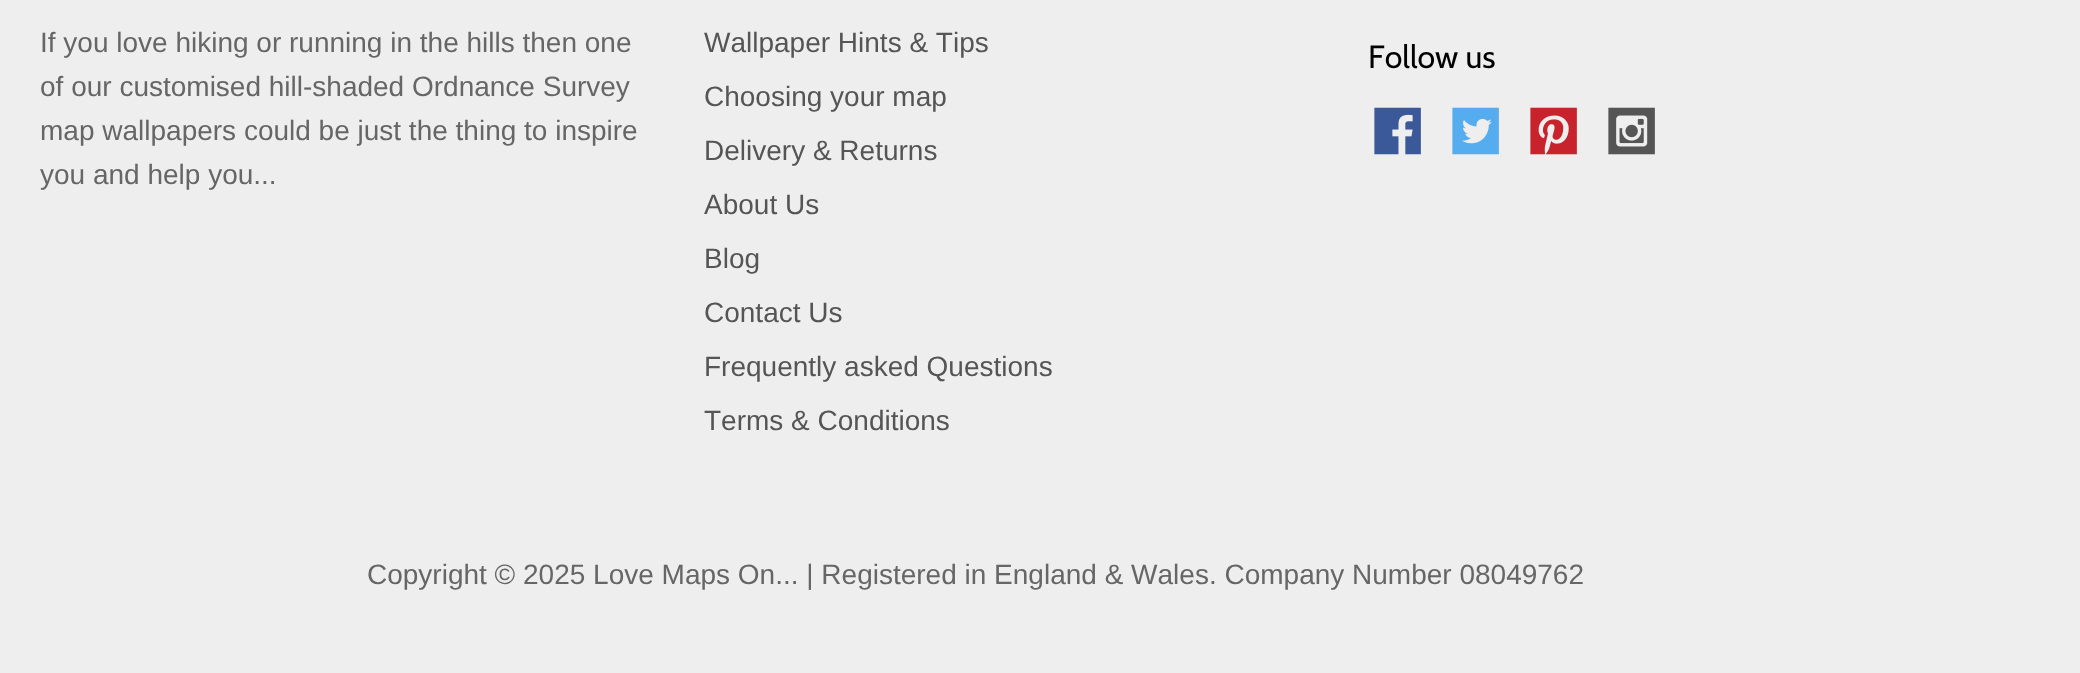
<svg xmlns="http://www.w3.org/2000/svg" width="2080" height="673">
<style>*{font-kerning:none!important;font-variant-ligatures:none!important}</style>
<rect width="100%" height="100%" fill="#eee"/>
<text x="40" y="52" style="font-family:Liberation Sans;font-size:28px;fill:#666">If you love hiking or running in the hills then one</text>
<text x="40" y="96" style="font-family:Liberation Sans;font-size:28px;fill:#666">of our customised hill-shaded Ordnance Survey</text>
<text x="40" y="140" style="font-family:Liberation Sans;font-size:28px;fill:#666">map wallpapers could be just the thing to inspire</text>
<text x="40" y="184" style="font-family:Liberation Sans;font-size:28px;fill:#666">you and help you...</text>
<text x="704" y="52" style="font-family:Liberation Sans;font-size:28px;fill:#555">Wallpaper Hints &amp; Tips</text>
<text x="704" y="106" style="font-family:Liberation Sans;font-size:28px;fill:#555">Choosing your map</text>
<text x="704" y="160" style="font-family:Liberation Sans;font-size:28px;fill:#555">Delivery &amp; Returns</text>
<text x="704" y="214" style="font-family:Liberation Sans;font-size:28px;fill:#555">About Us</text>
<text x="704" y="268" style="font-family:Liberation Sans;font-size:28px;fill:#555">Blog</text>
<text x="704" y="322" style="font-family:Liberation Sans;font-size:28px;fill:#555">Contact Us</text>
<text x="704" y="376" style="font-family:Liberation Sans;font-size:28px;fill:#555">Frequently asked Questions</text>
<text x="704" y="430" style="font-family:Liberation Sans;font-size:28px;fill:#555">Terms &amp; Conditions</text>
<text x="1368" y="68" style="font-family:Cabin;font-size:32px;fill:#000">Follow us</text>
<image x="1374" y="107" width="47" height="48" href="media/1.png"/>
<image x="1452" y="107" width="47" height="48" href="media/2.png"/>
<image x="1530" y="107" width="47" height="48" href="media/3.png"/>
<image x="1608" y="107" width="47" height="48" href="media/4.png"/>
<text x="367" y="584" style="font-family:Liberation Sans;font-size:28px;fill:#666">Copyright © 2025 Love Maps On... | Registered in England &amp; Wales. Company Number 08049762</text>
</svg>
